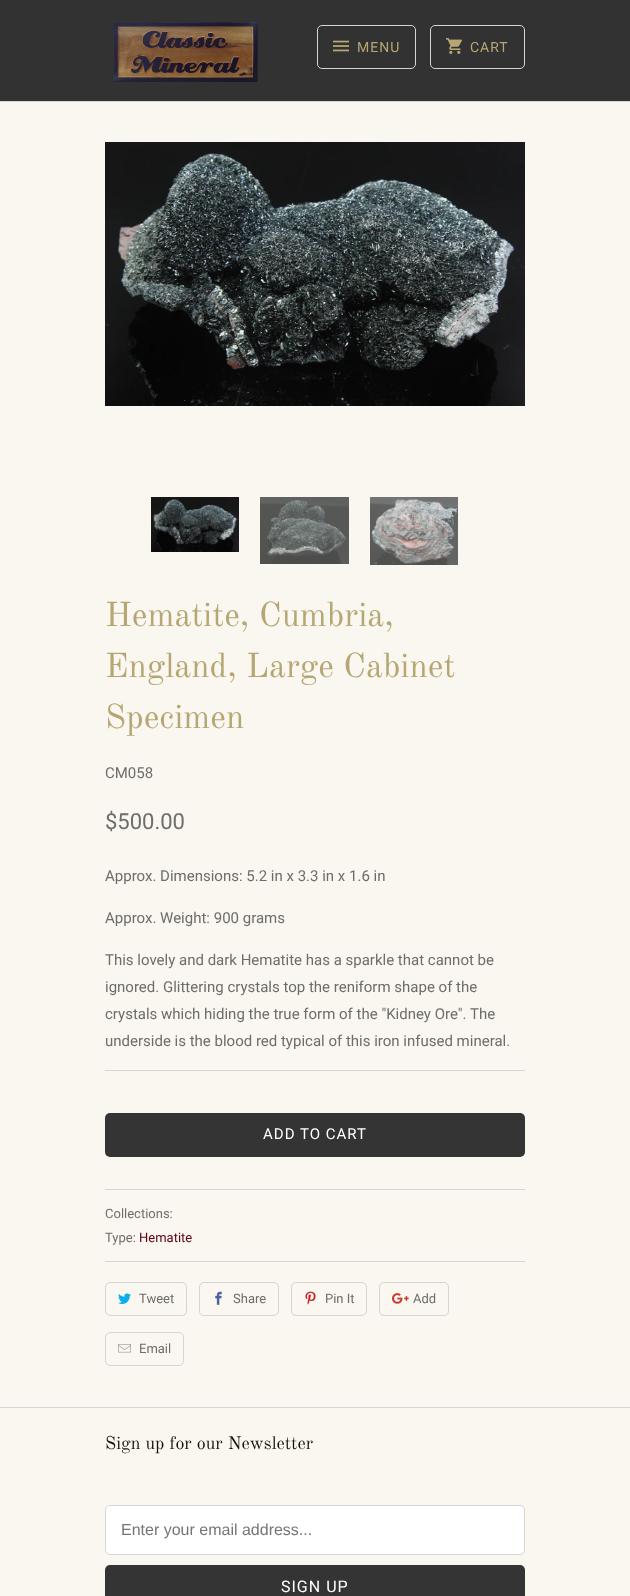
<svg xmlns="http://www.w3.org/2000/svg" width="630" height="1596">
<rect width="100%" height="100%" fill="#f9f7f0"/>
<rect width="630" height="101" fill="#333232"/>
<rect y="101" width="630" height="1" fill="#d7d4d3"/>
<image x="113" y="22" width="145" height="62" href="media/1.png"/>
<rect x="317.5" y="25.5" width="98" height="43" rx="4.5" fill="none" stroke="#d7d4d3"/>
<image x="333" y="40" width="16" height="12" href="media/2.png"/>
<text x="357" y="52" style="font-family:Roboto;font-size:14px;letter-spacing:1px;fill:#b6a673">MENU</text>
<rect x="430.5" y="25.5" width="94" height="43" rx="4.5" fill="none" stroke="#d7d4d3"/>
<image x="446" y="38" width="16" height="16" href="media/3.png"/>
<text x="470" y="52" style="font-family:Roboto;font-size:14px;letter-spacing:1px;fill:#b6a673">CART</text>
<image x="105" y="142" width="420" height="264" href="media/4.png"/>
<image x="151" y="497" width="88" height="55" href="media/5.png"/>
<image x="260" y="497" width="89" height="67" href="media/6.png"/>
<image x="370" y="497" width="88" height="68" href="media/7.png"/>
<text x="105" y="626" style="font-family:Old Standard TT;font-size:34px;fill:#b6a673">Hematite, Cumbria,</text>
<text x="105" y="677" style="font-family:Old Standard TT;font-size:34px;fill:#b6a673">England, Large Cabinet</text>
<text x="105" y="728" style="font-family:Old Standard TT;font-size:34px;fill:#b6a673">Specimen</text>
<text x="105" y="778" style="font-family:Roboto;font-size:15px;fill:#6e6d69">CM058</text>
<text x="105" y="829" style="font-family:Roboto;font-size:22px;fill:#6e6d69">$500.00</text>
<text x="105" y="881" style="font-family:Roboto;font-size:15px;fill:#6e6d69">Approx. Dimensions: 5.2 in x 3.3 in x 1.6 in</text>
<text x="105" y="923" style="font-family:Roboto;font-size:15px;fill:#6e6d69">Approx. Weight: 900 grams</text>
<text x="105" y="965" style="font-family:Roboto;font-size:15px;fill:#6e6d69">This lovely and dark Hematite has a sparkle that cannot be</text>
<text x="105" y="992" style="font-family:Roboto;font-size:15px;fill:#6e6d69">ignored. Glittering crystals top the reniform shape of the</text>
<text x="105" y="1019" style="font-family:Roboto;font-size:15px;fill:#6e6d69">crystals which hiding the true form of the "Kidney Ore". The</text>
<text x="105" y="1046" style="font-family:Roboto;font-size:15px;fill:#6e6d69">underside is the blood red typical of this iron infused mineral.</text>
<rect x="105" y="1070" width="420" height="1" fill="#d7d4d3"/>
<rect x="105" y="1113" width="420" height="44" rx="5" fill="#343434"/>
<text x="263" y="1139" style="font-family:Roboto;font-size:15px;letter-spacing:1px;fill:#fff">ADD TO CART</text>
<rect x="105" y="1189" width="420" height="1" fill="#d7d4d3"/>
<text x="105" y="1218" style="font-family:Roboto;font-size:13px;fill:#6e6d69">Collections:</text>
<text x="105" y="1242" style="font-family:Roboto;font-size:13px;fill:#6e6d69">Type:</text>
<text x="139" y="1242" style="font-family:Roboto;font-size:13px;fill:#5c0218">Hematite</text>
<rect x="105" y="1261" width="420" height="1" fill="#d7d4d3"/>
<rect x="105.5" y="1282.5" width="81" height="33" rx="4.5" fill="none" stroke="#d7d4d3"/>
<image x="118" y="1293" width="13" height="11" href="media/8.png"/>
<text x="139" y="1303" style="font-family:Roboto;font-size:13px;fill:#6e6d69">Tweet</text>
<rect x="199.5" y="1282.5" width="79" height="33" rx="4.5" fill="none" stroke="#d7d4d3"/>
<image x="215" y="1291" width="7" height="14" href="media/9.png"/>
<text x="233" y="1303" style="font-family:Roboto;font-size:13px;fill:#6e6d69">Share</text>
<rect x="291.5" y="1282.5" width="75" height="33" rx="4.5" fill="none" stroke="#d7d4d3"/>
<image x="305" y="1291" width="11" height="14" href="media/10.png"/>
<text x="325" y="1303" style="font-family:Roboto;font-size:13px;fill:#6e6d69">Pin It</text>
<rect x="379.5" y="1282.5" width="69" height="33" rx="4.5" fill="none" stroke="#d7d4d3"/>
<image x="392" y="1293" width="17" height="11" href="media/11.png"/>
<text x="413" y="1303" style="font-family:Roboto;font-size:13px;fill:#6e6d69">Add</text>
<rect x="105.5" y="1332.5" width="78" height="33" rx="4.5" fill="none" stroke="#d7d4d3"/>
<image x="118" y="1344" width="13" height="9" href="media/12.png"/>
<text x="139" y="1353" style="font-family:Roboto;font-size:13px;fill:#6e6d69">Email</text>
<rect y="1407" width="630" height="1" fill="#d7d4d3"/>
<text x="105" y="1449" style="font-family:Old Standard TT;font-size:18px;fill:#141003">Sign up for our Newsletter</text>
<rect x="105.5" y="1505.5" width="419" height="49" rx="4.5" fill="#fff" stroke="#d7d4d3"/>
<text x="121" y="1535" style="font-family:Liberation Sans;font-size:16px;fill:#757575">Enter your email address...</text>
<rect x="105" y="1565" width="420" height="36" rx="5" fill="#343434"/>
<text x="281" y="1592" style="font-family:Roboto;font-size:16px;letter-spacing:1px;fill:#fff">SIGN UP</text>
</svg>
